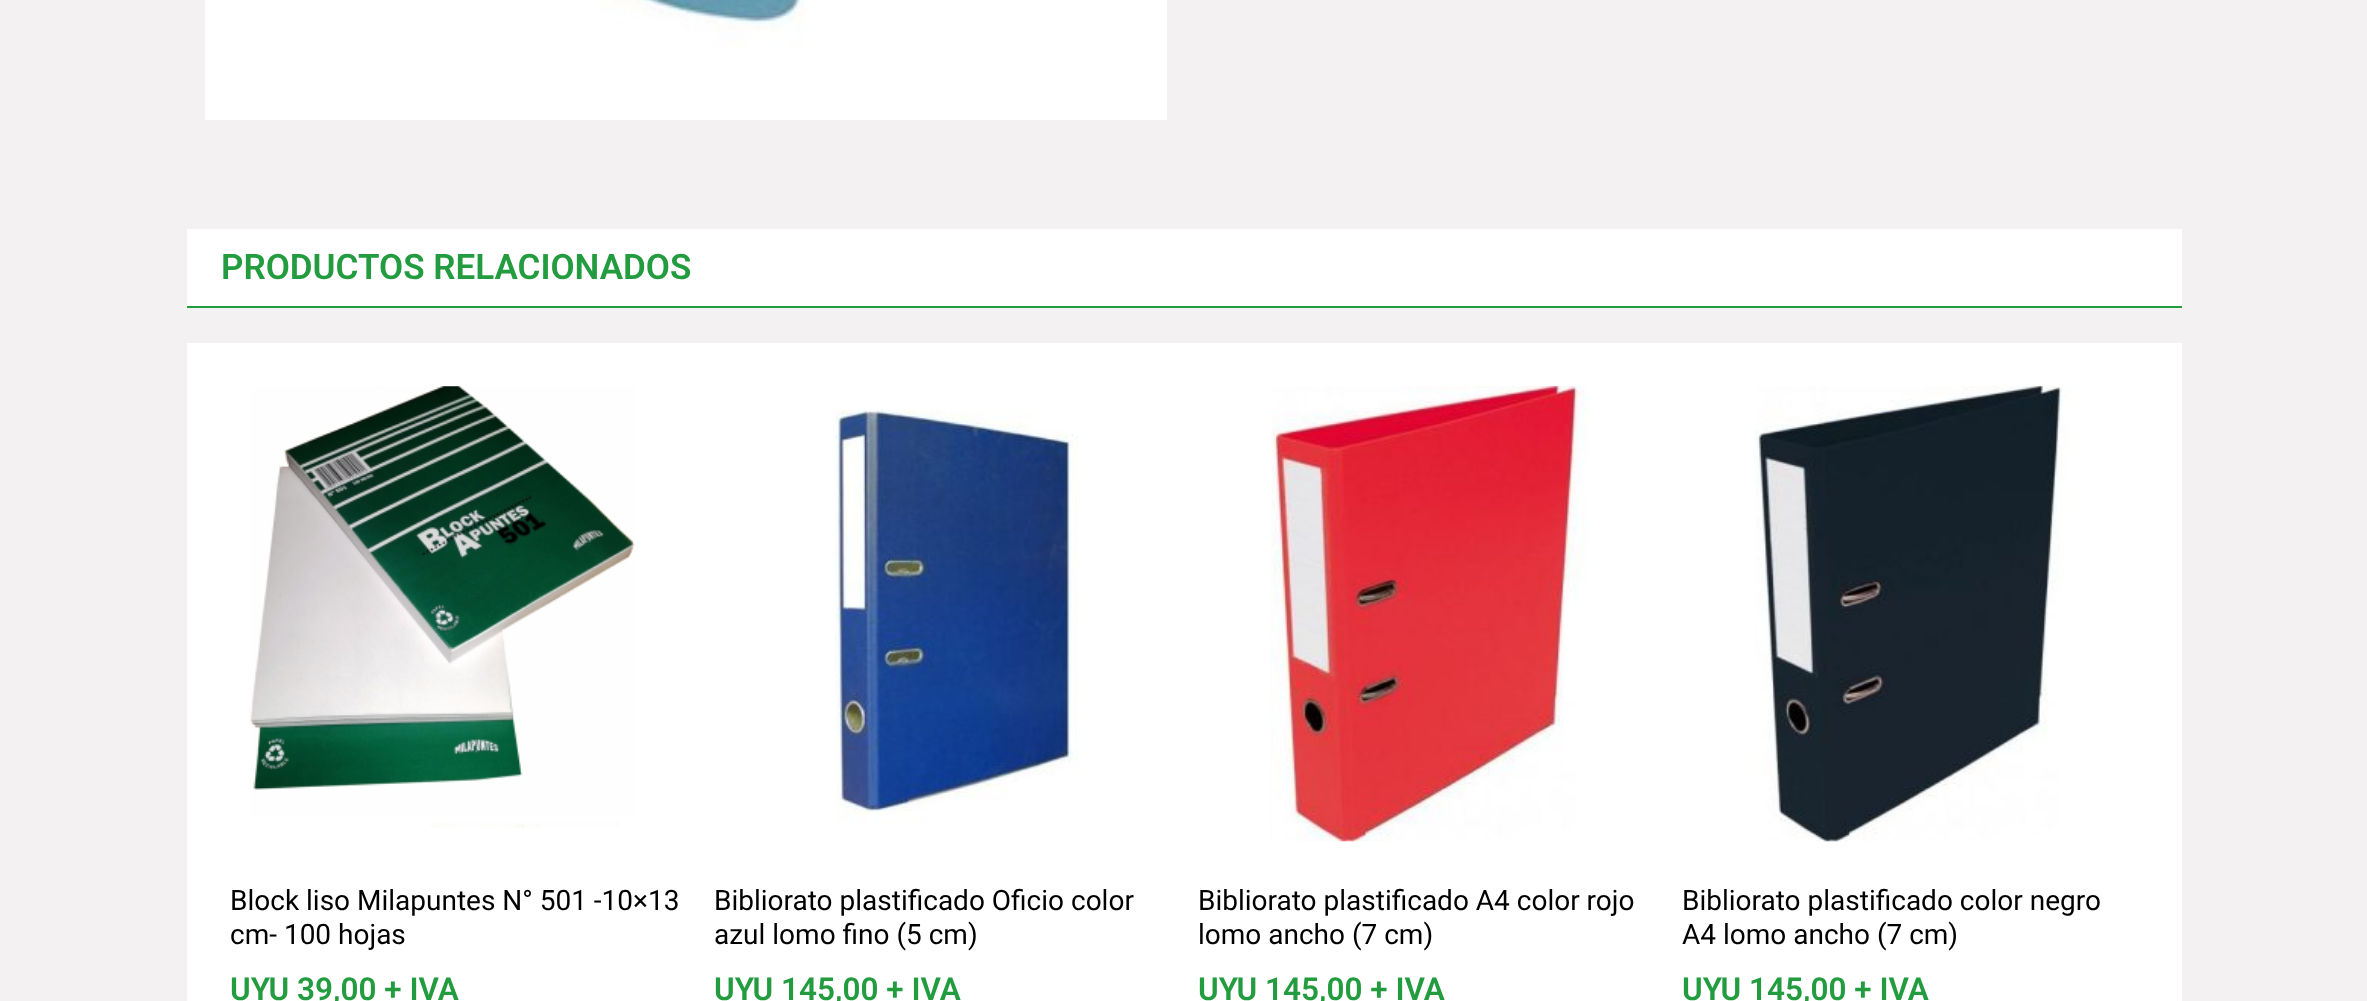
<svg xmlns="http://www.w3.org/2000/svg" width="2367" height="1001">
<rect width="100%" height="100%" fill="#f3f1f1"/>
<image x="205" y="0" width="962" height="120" href="media/1.png"/>
<rect x="187" y="229" width="1995" height="77" fill="#fff"/>
<rect x="187" y="306" width="1995" height="2" fill="#239c3f"/>
<text x="221" y="279" style="font-family:Roboto;font-size:35px;font-weight:600;fill:#239c3f">PRODUCTOS RELACIONADOS</text>
<rect x="187" y="343" width="1995" height="658" fill="#fff"/>
<image x="250" y="386" width="385" height="442" href="media/2.png"/>
<text x="230" y="910" style="font-family:Roboto;font-size:28px;fill:#000">Block liso Milapuntes N° 501 -10×13</text>
<text x="230" y="944" style="font-family:Roboto;font-size:28px;fill:#000">cm- 100 hojas</text>
<text x="230" y="1000" style="font-family:Roboto;font-size:31.5px;font-weight:600;fill:#239c3f">UYU 39,00 + IVA</text>
<image x="835" y="409" width="244" height="414" href="media/3.png"/>
<text x="714" y="910" style="font-family:Roboto;font-size:28px;fill:#000">Bibliorato plastificado Oficio color</text>
<text x="714" y="944" style="font-family:Roboto;font-size:28px;fill:#000">azul lomo fino (5 cm)</text>
<text x="714" y="1000" style="font-family:Roboto;font-size:31.5px;font-weight:600;fill:#239c3f">UYU 145,00 + IVA</text>
<image x="1270" y="386" width="318" height="456" href="media/4.png"/>
<text x="1198" y="910" style="font-family:Roboto;font-size:28px;fill:#000">Bibliorato plastificado A4 color rojo</text>
<text x="1198" y="944" style="font-family:Roboto;font-size:28px;fill:#000">lomo ancho (7 cm)</text>
<text x="1198" y="1000" style="font-family:Roboto;font-size:31.5px;font-weight:600;fill:#239c3f">UYU 145,00 + IVA</text>
<image x="1755" y="386" width="316" height="456" href="media/5.png"/>
<text x="1682" y="910" style="font-family:Roboto;font-size:28px;fill:#000">Bibliorato plastificado color negro</text>
<text x="1682" y="944" style="font-family:Roboto;font-size:28px;fill:#000">A4 lomo ancho (7 cm)</text>
<text x="1682" y="1000" style="font-family:Roboto;font-size:31.5px;font-weight:600;fill:#239c3f">UYU 145,00 + IVA</text>
</svg>
